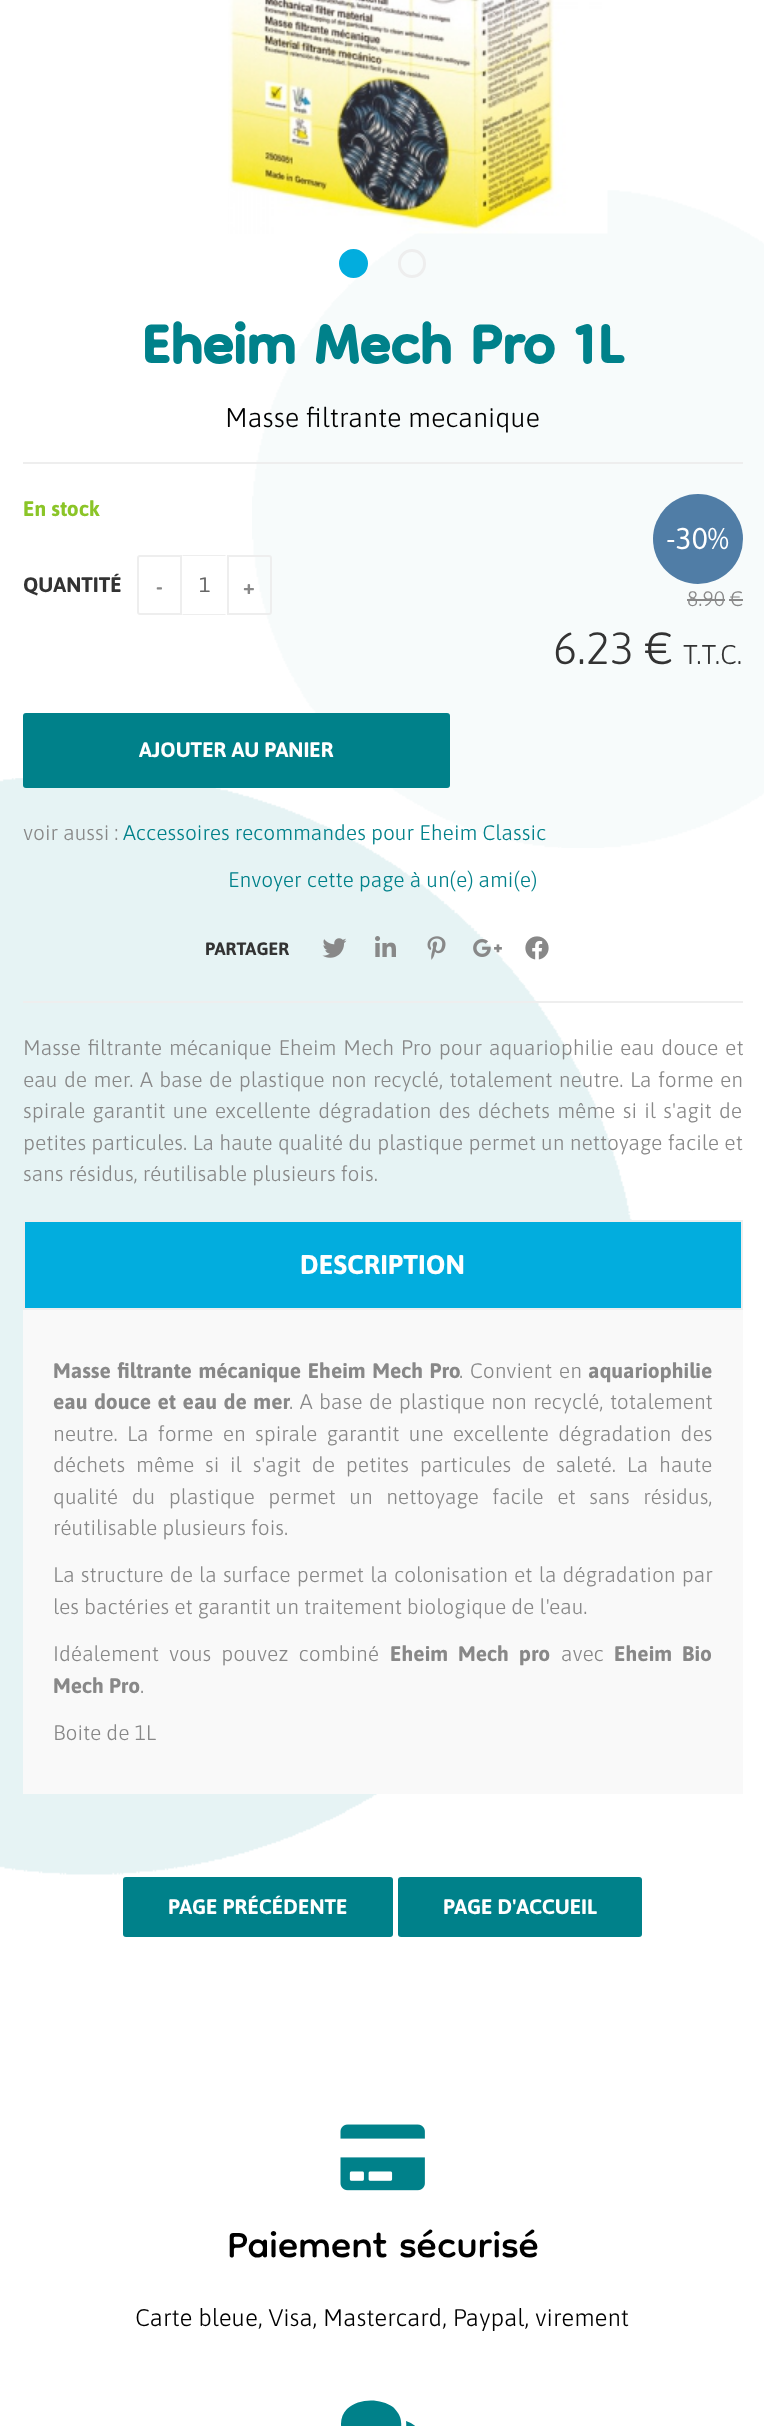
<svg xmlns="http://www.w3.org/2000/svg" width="764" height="2426">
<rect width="100%" height="100%" fill="#fff"/>
<image x="252" y="190" width="512" height="658" href="media/1.png"/>
<image x="228" y="0" width="380" height="234" href="media/2.png"/>
<circle cx="353.5" cy="263.5" r="13" fill="#02adde" stroke="#02adde" stroke-width="3"/>
<rect x="399.5" y="250.5" width="25" height="26" rx="12.5" fill="none" stroke="#eee" stroke-width="3"/>
<text x="141" y="363" style="font-family:Dongle;font-size:90px;font-weight:bold;fill:#00818a">Eheim Mech Pro 1L</text>
<text x="225" y="427" style="font-family:Asap;font-size:27px;font-weight:300;fill:#000">Masse filtrante mecanique</text>
<rect x="23" y="462" width="720" height="2" fill="#eee"/>
<image x="0" y="778" width="632" height="1097" href="media/9.png"/>
<rect x="23" y="1001" width="720" height="2" fill="#eee"/>
<text x="23" y="516" style="font-family:Asap;font-size:21px;font-weight:bold;fill:#8bc528">En stock</text>
<text x="23" y="592" style="font-family:Asap;font-size:21px;font-weight:bold;fill:#333">QUANTITÉ</text>
<path d="M140 556h41v58h-41c-1 0-2-1-2-2v-54c0-1 1-2 2-2z" fill="none" stroke="#eee" stroke-width="2"/>
<text x="156" y="594" style="font-family:Asap;font-size:21px;font-weight:bold;fill:#888">-</text>
<path d="M182 555h44l-1 1h-42zm44 60h-44l1-1h42z" fill="#eee"/>
<text x="199" y="592" style="font-family:Asap;font-size:21px;fill:#666">1</text>
<path d="M228 556h41c1 0 2 1 2 2v54c0 1-1 2-2 2h-41z" fill="none" stroke="#eee" stroke-width="2"/>
<text x="243" y="594" style="font-family:Asap;font-size:21px;font-weight:bold;fill:#888">+</text>
<rect x="23" y="713" width="427" height="75" rx="3" fill="#00818a"/>
<text x="139" y="757" style="font-family:Asap;font-size:21px;font-weight:bold;fill:#fff">AJOUTER AU PANIER</text>
<circle cx="698" cy="539" r="45" fill="#507da6"/>
<text x="666" y="549" style="font-family:Asap;font-size:30px;fill:#fff">-30%</text>
<text x="687" y="606" style="font-family:Asap;font-size:21px;font-weight:300;fill:#888">8.90 €</text>
<rect x="687" y="599" width="38" height="2" fill="#888"/>
<rect x="729" y="599" width="14" height="2" fill="#888"/>
<text x="553" y="664" style="font-family:Asap;font-size:45px;font-weight:300;fill:#333">6.23 €</text>
<text x="683" y="664" style="font-family:Asap;font-size:27px;font-weight:300;fill:#333">T.T.C.</text>
<text x="23" y="840" style="font-family:Asap;font-size:21px;font-weight:300;fill:#888">voir aussi :</text>
<text x="123" y="840" style="font-family:Asap;font-size:21px;font-weight:300;fill:#00818a">Accessoires recommandes pour Eheim Classic</text>
<text x="228" y="887" style="font-family:Asap;font-size:21px;font-weight:300;fill:#00818a">Envoyer cette page à un(e) ami(e)</text>
<text x="205" y="955" style="font-family:Asap;font-size:18px;font-weight:bold;fill:#333">PARTAGER</text>
<image x="322" y="938" width="25" height="20" href="media/3.png"/>
<image x="375" y="936" width="21" height="21" href="media/4.png"/>
<image x="427" y="936" width="19" height="24" href="media/5.png"/>
<image x="473" y="939" width="29" height="18" href="media/6.png"/>
<image x="525" y="936" width="24" height="24" href="media/7.png"/>
<text x="23" y="1055" word-spacing="1.75" style="font-family:Asap;font-size:21px;font-weight:300;fill:#888">Masse filtrante mécanique Eheim Mech Pro pour aquariophilie eau douce et</text>
<text x="23" y="1087" word-spacing="1.4" style="font-family:Asap;font-size:21px;font-weight:300;fill:#888">eau de mer. A base de plastique non recyclé, totalement neutre. La forme en</text>
<text x="23" y="1118" word-spacing="2.25" style="font-family:Asap;font-size:21px;font-weight:300;fill:#888">spirale garantit une excellente dégradation des déchets même si il s'agit de</text>
<text x="23" y="1150" word-spacing="0.25" style="font-family:Asap;font-size:21px;font-weight:300;fill:#888">petites particules. La haute qualité du plastique permet un nettoyage facile et</text>
<text x="23" y="1181" style="font-family:Asap;font-size:21px;font-weight:300;fill:#888">sans résidus, réutilisable plusieurs fois.</text>
<rect x="23" y="1310" width="720" height="484" fill="#f9f9f9"/>
<rect x="24" y="1221" width="718" height="88" fill="#02adde" stroke="#eee" stroke-width="2"/>
<text x="300" y="1274" style="font-family:Asap;font-size:27px;font-weight:bold;fill:#fff">DESCRIPTION</text>
<text x="53" y="1378" word-spacing="1.5" style="font-family:Asap;font-size:21px;font-weight:bold;fill:#888">Masse filtrante mécanique Eheim Mech Pro</text>
<text x="459" y="1378" word-spacing="1.5" style="font-family:Asap;font-size:21px;font-weight:300;fill:#888">. Convient en</text>
<text x="588" y="1378" style="font-family:Asap;font-size:21px;font-weight:bold;fill:#888">aquariophilie</text>
<text x="53" y="1409" word-spacing="1.5" style="font-family:Asap;font-size:21px;font-weight:bold;fill:#888">eau douce et eau de mer</text>
<text x="289" y="1409" word-spacing="1.5" style="font-family:Asap;font-size:21px;font-weight:300;fill:#888">. A base de plastique non recyclé, totalement</text>
<text x="53" y="1441" word-spacing="4.25" style="font-family:Asap;font-size:21px;font-weight:300;fill:#888">neutre. La forme en spirale garantit une excellente dégradation des</text>
<text x="53" y="1472" word-spacing="5.75" style="font-family:Asap;font-size:21px;font-weight:300;fill:#888">déchets même si il s'agit de petites particules de saleté. La haute</text>
<text x="53" y="1504" word-spacing="8.5" style="font-family:Asap;font-size:21px;font-weight:300;fill:#888">qualité du plastique permet un nettoyage facile et sans résidus,</text>
<text x="53" y="1535" style="font-family:Asap;font-size:21px;font-weight:300;fill:#888">réutilisable plusieurs fois.</text>
<text x="53" y="1582" word-spacing="1.1" style="font-family:Asap;font-size:21px;font-weight:300;fill:#888">La structure de la surface permet la colonisation et la dégradation par</text>
<text x="53" y="1614" style="font-family:Asap;font-size:21px;font-weight:300;fill:#888">les bactéries et garantit un traitement biologique de l'eau.</text>
<text x="53" y="1661" word-spacing="5" style="font-family:Asap;font-size:21px;font-weight:300;fill:#888">Idéalement vous pouvez combiné</text>
<text x="390" y="1661" word-spacing="5" style="font-family:Asap;font-size:21px;font-weight:bold;fill:#888">Eheim Mech pro</text>
<text x="561" y="1661" style="font-family:Asap;font-size:21px;font-weight:300;fill:#888">avec</text>
<text x="614" y="1661" word-spacing="5" style="font-family:Asap;font-size:21px;font-weight:bold;fill:#888">Eheim Bio</text>
<text x="53" y="1693" style="font-family:Asap;font-size:21px;font-weight:bold;fill:#888">Mech Pro</text>
<text x="140" y="1693" style="font-family:Asap;font-size:21px;font-weight:300;fill:#888">.</text>
<text x="53" y="1740" style="font-family:Asap;font-size:21px;font-weight:300;fill:#888">Boite de 1L</text>
<rect x="123" y="1877" width="270" height="60" rx="3" fill="#00818a"/>
<text x="168" y="1914" style="font-family:Asap;font-size:21px;font-weight:bold;fill:#fff">PAGE PRÉCÉDENTE</text>
<rect x="398" y="1877" width="244" height="60" rx="3" fill="#00818a"/>
<text x="443" y="1914" style="font-family:Asap;font-size:21px;font-weight:bold;fill:#fff">PAGE D'ACCUEIL</text>
<image x="340" y="2124" width="85" height="67" href="media/8.png"/>
<text x="227" y="2257" style="font-family:Dongle;font-size:60px;fill:#000">Paiement sécurisé</text>
<text x="135" y="2326" style="font-family:Asap;font-size:24px;font-weight:300;fill:#000">Carte bleue, Visa, Mastercard, Paypal, virement</text>
<path d="M393 2407c4 4 8 9 8 15c1 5-1 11-4 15c-11 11-29 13-42 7l-7 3c-14 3-4-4-2-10c-3-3-5-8-5-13c0-6 2-11 6-15c12-11 33-11 46-2zm26 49l4 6c2 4 4 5-4 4l-8-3c-14 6-36 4-45-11c19 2 43-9 40-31c15 5 26 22 13 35z" fill="#00818a"/>
</svg>
